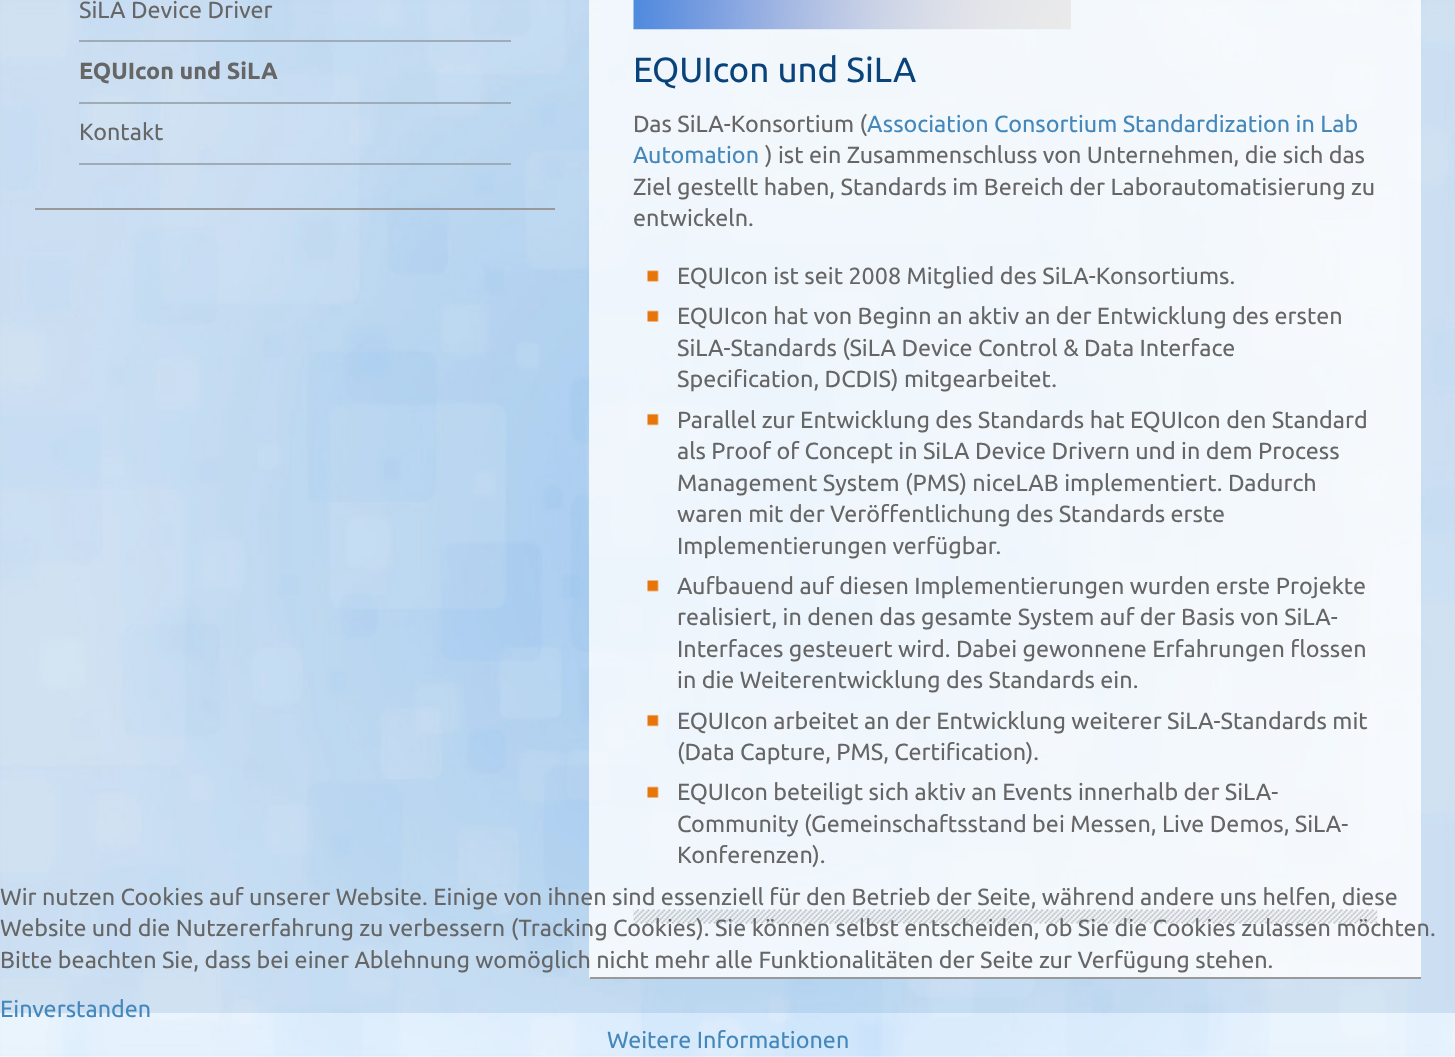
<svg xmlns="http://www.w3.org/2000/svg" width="1455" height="1057">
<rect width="100%" height="100%" fill="#fff"/>
<image x="0" y="0" width="1455" height="1057" href="media/1.png"/>
<rect x="35" y="208" width="520" height="2" fill="#999"/>
<rect x="79" y="40" width="432" height="2" fill="#9dacb7"/>
<text x="79" y="18" style="font-family:Ubuntu;font-size:23.33px;fill:#666">SiLA Device Driver</text>
<rect x="79" y="102" width="432" height="2" fill="#9dacb7"/>
<text x="79" y="79" style="font-family:Ubuntu;font-size:23.33px;font-weight:bold;fill:#666">EQUIcon und SiLA</text>
<rect x="79" y="163" width="432" height="2" fill="#9dacb7"/>
<text x="79" y="140" style="font-family:Ubuntu;font-size:23.33px;fill:#666">Kontakt</text>
<rect x="589" width="832" height="978" fill="#ffffffcc"/>
<rect x="590" y="977" width="831" height="2" fill="#999"/>
<image x="633" y="909" width="745" height="15" href="media/2.png"/>
<image x="633" y="0" width="438" height="30" href="media/3.png"/>
<text x="633" y="82" style="font-family:Ubuntu;font-size:35px;fill:#09437a">EQUIcon und SiLA</text>
<text x="633" y="132" style="font-family:Ubuntu;font-size:23.33px;fill:#666">Das SiLA-Konsortium (</text>
<text x="867" y="132" style="font-family:Ubuntu;font-size:23.33px;fill:#48b">Association Consortium Standardization in Lab</text>
<text x="633" y="163" style="font-family:Ubuntu;font-size:23.33px;fill:#48b">Automation</text>
<text x="765" y="163" style="font-family:Ubuntu;font-size:23.33px;fill:#666">) ist ein Zusammenschluss von Unternehmen, die sich das</text>
<text x="633" y="195" style="font-family:Ubuntu;font-size:23.33px;fill:#666">Ziel gestellt haben, Standards im Bereich der Laborautomatisierung zu</text>
<text x="633" y="226" style="font-family:Ubuntu;font-size:23.33px;fill:#666">entwickeln.</text>
<image x="647" y="270" width="12" height="12" href="media/4.png"/>
<text x="677" y="284" style="font-family:Ubuntu;font-size:23.33px;fill:#666">EQUIcon ist seit 2008 Mitglied des SiLA-Konsortiums.</text>
<image x="647" y="310" width="12" height="12" href="media/5.png"/>
<text x="677" y="324" style="font-family:Ubuntu;font-size:23.33px;fill:#666">EQUIcon hat von Beginn an aktiv an der Entwicklung des ersten</text>
<text x="677" y="356" style="font-family:Ubuntu;font-size:23.33px;fill:#666">SiLA-Standards (SiLA Device Control &amp; Data Interface</text>
<text x="677" y="387" style="font-family:Ubuntu;font-size:23.33px;fill:#666">Specification, DCDIS) mitgearbeitet.</text>
<image x="647" y="413" width="12" height="13" href="media/6.png"/>
<text x="677" y="428" style="font-family:Ubuntu;font-size:23.33px;fill:#666">Parallel zur Entwicklung des Standards hat EQUIcon den Standard</text>
<text x="677" y="459" style="font-family:Ubuntu;font-size:23.33px;fill:#666">als Proof of Concept in SiLA Device Drivern und in dem Process</text>
<text x="677" y="491" style="font-family:Ubuntu;font-size:23.33px;fill:#666">Management System (PMS) niceLAB implementiert. Dadurch</text>
<text x="677" y="522" style="font-family:Ubuntu;font-size:23.33px;fill:#666">waren mit der Veröffentlichung des Standards erste</text>
<text x="677" y="554" style="font-family:Ubuntu;font-size:23.33px;fill:#666">Implementierungen verfügbar.</text>
<image x="647" y="580" width="12" height="12" href="media/7.png"/>
<text x="677" y="594" style="font-family:Ubuntu;font-size:23.33px;fill:#666">Aufbauend auf diesen Implementierungen wurden erste Projekte</text>
<text x="677" y="625" style="font-family:Ubuntu;font-size:23.33px;fill:#666">realisiert, in denen das gesamte System auf der Basis von SiLA-</text>
<text x="677" y="657" style="font-family:Ubuntu;font-size:23.33px;fill:#666">Interfaces gesteuert wird. Dabei gewonnene Erfahrungen flossen</text>
<text x="677" y="688" style="font-family:Ubuntu;font-size:23.33px;fill:#666">in die Weiterentwicklung des Standards ein.</text>
<image x="647" y="714" width="12" height="13" href="media/8.png"/>
<text x="677" y="729" style="font-family:Ubuntu;font-size:23.33px;fill:#666">EQUIcon arbeitet an der Entwicklung weiterer SiLA-Standards mit</text>
<text x="677" y="760" style="font-family:Ubuntu;font-size:23.33px;fill:#666">(Data Capture, PMS, Certification).</text>
<image x="647" y="786" width="12" height="12" href="media/9.png"/>
<text x="677" y="800" style="font-family:Ubuntu;font-size:23.33px;fill:#666">EQUIcon beteiligt sich aktiv an Events innerhalb der SiLA-</text>
<text x="677" y="832" style="font-family:Ubuntu;font-size:23.33px;fill:#666">Community (Gemeinschaftsstand bei Messen, Live Demos, SiLA-</text>
<text x="677" y="863" style="font-family:Ubuntu;font-size:23.33px;fill:#666">Konferenzen).</text>
<text x="0" y="905" style="font-family:Ubuntu;font-size:23.33px;fill:#666">Wir nutzen Cookies auf unserer Website. Einige von ihnen sind essenziell für den Betrieb der Seite, während andere uns helfen, diese</text>
<text x="0" y="936" style="font-family:Ubuntu;font-size:23.33px;fill:#666">Website und die Nutzererfahrung zu verbessern (Tracking Cookies). Sie können selbst entscheiden, ob Sie die Cookies zulassen möchten.</text>
<text x="0" y="968" style="font-family:Ubuntu;font-size:23.33px;fill:#666">Bitte beachten Sie, dass bei einer Ablehnung womöglich nicht mehr alle Funktionalitäten der Seite zur Verfügung stehen.</text>
<text x="0" y="1017" style="font-family:Ubuntu;font-size:23.33px;fill:#48b">Einverstanden</text>
<text x="607" y="1048" style="font-family:Ubuntu;font-size:23.33px;fill:#48b">Weitere Informationen</text>
</svg>
